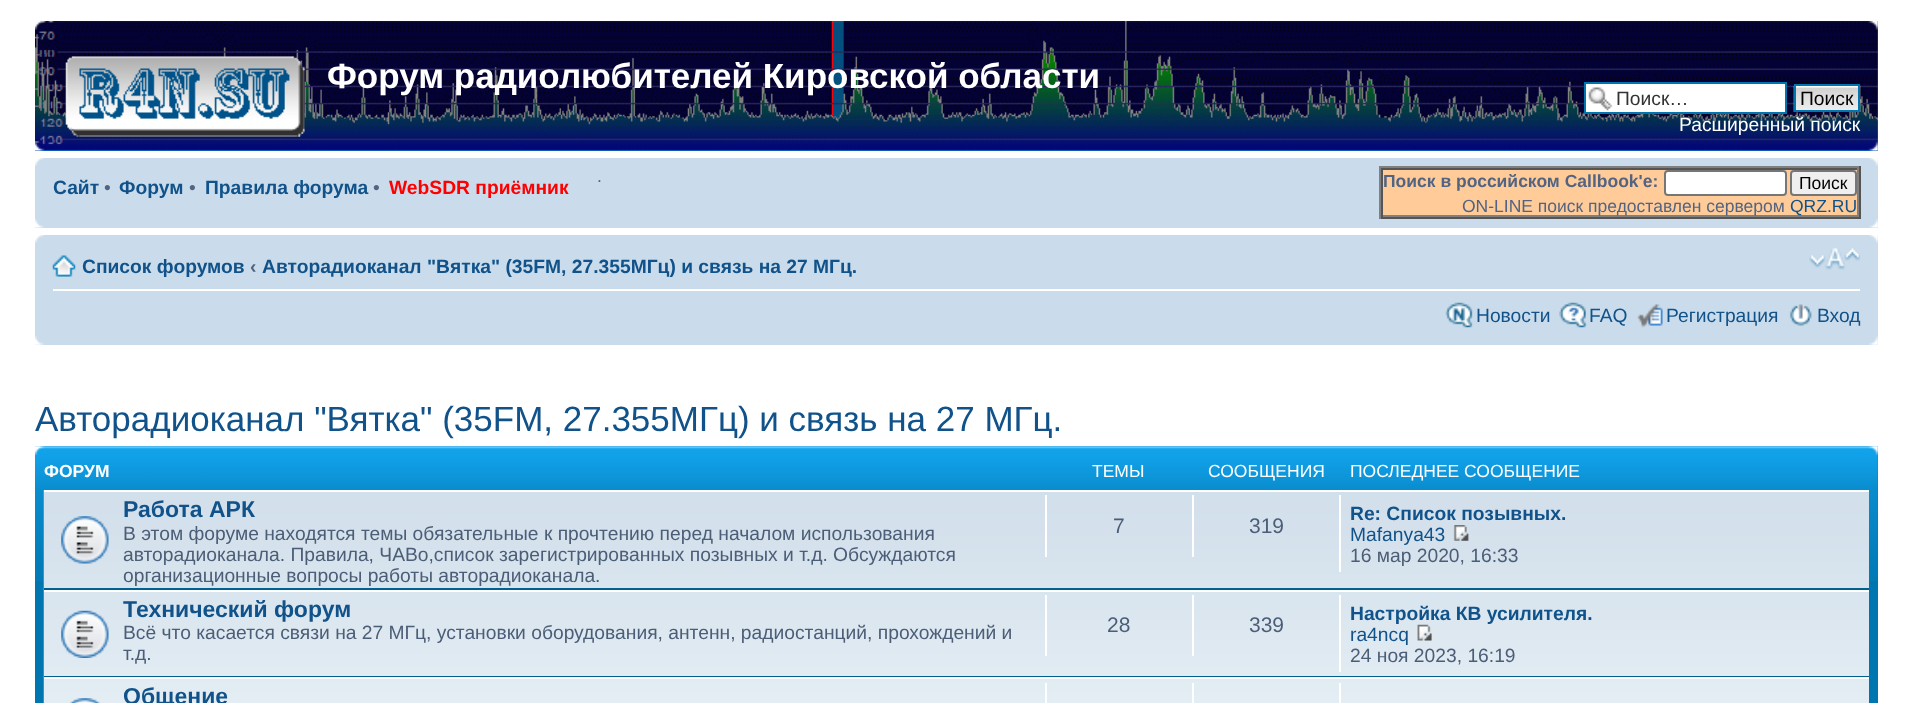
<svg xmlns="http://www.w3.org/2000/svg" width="1912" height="703">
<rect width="100%" height="100%" fill="#fff"/>
<rect x="35" y="21" width="1843" height="130" fill="#12a3eb"/>
<image x="35" y="21" width="1843" height="130" href="media/1.png"/>
<image x="35" y="21" width="10" height="9" href="media/2.png"/>
<image x="1868" y="21" width="10" height="9" href="media/3.png"/>
<image x="65" y="56" width="240" height="81" href="media/4.png"/>
<text x="327" y="88" style="font-family:Liberation Sans;font-size:35px;font-weight:bold;fill:#fff">Форум радиолюбителей Кировской области</text>
<rect x="1586" y="84" width="199" height="28" fill="#fff"/>
<image x="1588" y="87" width="25" height="24" href="media/5.png"/>
<rect x="1585" y="83" width="201" height="30" fill="none" stroke="#0075b0" stroke-width="2"/>
<text x="1616" y="105" style="font-family:Liberation Sans;font-size:19.25px;fill:#333">Поиск…</text>
<image x="1793" y="85" width="68" height="27" href="media/6.png"/>
<rect x="1795" y="85" width="64" height="26" fill="none" stroke="#0075b0" stroke-width="2"/>
<text x="1800" y="105" style="font-family:Liberation Sans;font-size:19.25px;fill:#000">Поиск</text>
<text x="1679" y="131" style="font-family:Liberation Sans;font-size:19.25px;fill:#fff">Расширенный поиск</text>
<image x="35" y="141" width="10" height="10" href="media/7.png"/>
<image x="1868" y="141" width="10" height="10" href="media/8.png"/>
<rect x="35" y="158" width="1843" height="70" fill="#cadceb"/>
<image x="35" y="158" width="9" height="8" href="media/9.png"/>
<image x="1869" y="158" width="9" height="8" href="media/10.png"/>
<text x="53" y="194" style="font-family:Liberation Sans;font-size:19.25px;font-weight:bold;fill:#105289">Сайт</text>
<text x="104" y="194" style="font-family:Liberation Sans;font-size:19.25px;fill:#536482">•</text>
<text x="119" y="194" style="font-family:Liberation Sans;font-size:19.25px;font-weight:bold;fill:#105289">Форум</text>
<text x="189" y="194" style="font-family:Liberation Sans;font-size:19.25px;fill:#536482">•</text>
<text x="205" y="194" style="font-family:Liberation Sans;font-size:19.25px;font-weight:bold;fill:#105289">Правила форума</text>
<text x="373" y="194" style="font-family:Liberation Sans;font-size:19.25px;fill:#536482">•</text>
<text x="389" y="194" style="font-family:Liberation Sans;font-size:19.25px;font-weight:bold;fill:#f00">WebSDR приёмник</text>
<text x="597" y="182" style="font-family:Liberation Sans;font-size:17.5px;fill:#536482">.</text>
<rect x="1383" y="170" width="474" height="45" fill="#fc9"/>
<rect x="1379" y="166" width="481" height="2" fill="#808080"/>
<rect x="1859" y="166" width="2" height="53" fill="#555"/>
<rect x="1379" y="217" width="481" height="2" fill="#555"/>
<rect x="1379" y="166" width="2" height="53" fill="#808080"/>
<rect x="1381" y="168" width="478" height="2" fill="#555"/>
<rect x="1857" y="168" width="2" height="49" fill="#808080"/>
<rect x="1381" y="215" width="478" height="2" fill="#808080"/>
<rect x="1381" y="168" width="2" height="49" fill="#555"/>
<text x="1383" y="187" style="font-family:Liberation Sans;font-size:17.5px;font-weight:bold;fill:#536482">Поиск в российском Callbook'e:</text>
<rect x="1665" y="171" width="121" height="24" rx="3" fill="#fff" stroke="#767676" stroke-width="2"/>
<rect x="1791" y="171" width="65" height="24" rx="3" fill="#efefef" stroke="#767676" stroke-width="2"/>
<text x="1799" y="189" style="font-family:Liberation Sans;font-size:17.5px;fill:#000">Поиск</text>
<text x="1462" y="212" style="font-family:Liberation Sans;font-size:17.5px;fill:#536482">ON-LINE поиск предоставлен сервером</text>
<text x="1790" y="212" style="font-family:Liberation Sans;font-size:17.5px;fill:#105289">QRZ.RU</text>
<image x="35" y="219" width="9" height="9" href="media/11.png"/>
<image x="1869" y="219" width="9" height="9" href="media/12.png"/>
<rect x="35" y="235" width="1843" height="110" fill="#cadceb"/>
<image x="35" y="235" width="9" height="8" href="media/9.png"/>
<image x="1869" y="235" width="9" height="8" href="media/10.png"/>
<rect x="53" y="289" width="1807" height="2" fill="#fff"/>
<image x="52" y="255" width="24" height="22" href="media/13.png"/>
<text x="82" y="273" style="font-family:Liberation Sans;font-size:19.25px;font-weight:bold;fill:#105289">Список форумов</text>
<text x="250" y="273" style="font-family:Liberation Sans;font-size:19.25px;font-weight:bold;fill:#536482">‹</text>
<text x="262" y="273" style="font-family:Liberation Sans;font-size:19.25px;font-weight:bold;fill:#105289">Авторадиоканал "Вятка" (35FM, 27.355МГц) и связь на 27 МГц.</text>
<image x="1809" y="248" width="51" height="22" href="media/14.png"/>
<image x="1445" y="302" width="28" height="26" href="media/15.png"/>
<text x="1476" y="322" style="font-family:Liberation Sans;font-size:19.25px;fill:#105289">Новости</text>
<image x="1559" y="302" width="29" height="26" href="media/16.png"/>
<text x="1589" y="322" style="font-family:Liberation Sans;font-size:19.25px;fill:#105289">FAQ</text>
<image x="1637" y="304" width="26" height="24" href="media/17.png"/>
<text x="1666" y="322" style="font-family:Liberation Sans;font-size:19.25px;fill:#105289">Регистрация</text>
<image x="1789" y="304" width="23" height="22" href="media/18.png"/>
<text x="1817" y="322" style="font-family:Liberation Sans;font-size:19.25px;fill:#105289">Вход</text>
<image x="35" y="336" width="9" height="9" href="media/19.png"/>
<image x="1869" y="336" width="9" height="9" href="media/20.png"/>
<text x="35" y="431" style="font-family:Liberation Sans;font-size:35px;fill:#105289">Авторадиоканал "Вятка" (35FM, 27.355МГц) и связь на 27 МГц.</text>
<rect x="35" y="446" width="1843" height="257" fill="#0076b1"/>
<image x="35" y="446" width="1843" height="135" href="media/21.png"/>
<image x="35" y="446" width="10" height="9" href="media/22.png"/>
<image x="1868" y="446" width="10" height="9" href="media/23.png"/>
<text x="44" y="477" style="font-family:Liberation Sans;font-size:17.5px;font-weight:bold;fill:#fff">ФОРУМ</text>
<text x="1092" y="477" style="font-family:Liberation Sans;font-size:17.5px;fill:#fff">ТЕМЫ</text>
<text x="1208" y="477" style="font-family:Liberation Sans;font-size:17.5px;fill:#fff">СООБЩЕНИЯ</text>
<text x="1350" y="477" style="font-family:Liberation Sans;font-size:17.5px;fill:#fff">ПОСЛЕДНЕЕ СООБЩЕНИЕ</text>
<image x="43" y="490" width="1826" height="213" href="media/24.png"/>
<rect x="44" y="490" width="1825" height="2" fill="#fff"/>
<rect x="44" y="588" width="1825" height="2" fill="#00608f"/>
<image x="61" y="516" width="48" height="48" href="media/25.png"/>
<text x="123" y="517" style="font-family:Liberation Sans;font-size:23px;font-weight:bold;fill:#105289">Работа АРК</text>
<text x="123" y="540" style="font-family:Liberation Sans;font-size:19.25px;fill:#4c5d77">В этом форуме находятся темы обязательные к прочтению перед началом использования</text>
<text x="123" y="561" style="font-family:Liberation Sans;font-size:19.25px;fill:#4c5d77">авторадиоканала. Правила, ЧАВо,список зарегистрированных позывных и т.д. Обсуждаются</text>
<text x="123" y="582" style="font-family:Liberation Sans;font-size:19.25px;fill:#4c5d77">организационные вопросы работы авторадиоканала.</text>
<rect x="1045" y="495" width="2" height="62" fill="#fff"/>
<text x="1113" y="533" style="font-family:Liberation Sans;font-size:21px;fill:#4c5d77">7</text>
<rect x="1192" y="495" width="2" height="62" fill="#fff"/>
<text x="1249" y="533" style="font-family:Liberation Sans;font-size:21px;fill:#4c5d77">319</text>
<rect x="1339" y="495" width="2" height="77" fill="#fff"/>
<text x="1350" y="520" style="font-family:Liberation Sans;font-size:19.25px;font-weight:bold;fill:#105289">Re: Список позывных.</text>
<text x="1350" y="541" style="font-family:Liberation Sans;font-size:19.25px;fill:#105289">Mafanya43</text>
<image x="1453" y="525" width="16" height="16" href="media/26.png"/>
<text x="1350" y="562" style="font-family:Liberation Sans;font-size:19.25px;fill:#4c5d77">16 мар 2020, 16:33</text>
<rect x="44" y="590" width="1825" height="2" fill="#fff"/>
<rect x="44" y="676" width="1825" height="1" fill="#00608f"/>
<image x="61" y="610" width="48" height="48" href="media/27.png"/>
<text x="123" y="617" style="font-family:Liberation Sans;font-size:23px;font-weight:bold;fill:#105289">Технический форум</text>
<text x="123" y="639" style="font-family:Liberation Sans;font-size:19.25px;fill:#4c5d77">Всё что касается связи на 27 МГц, установки оборудования, антенн, радиостанций, прохождений и</text>
<text x="123" y="660" style="font-family:Liberation Sans;font-size:19.25px;fill:#4c5d77">т.д.</text>
<rect x="1045" y="595" width="2" height="61" fill="#fff"/>
<text x="1107" y="632" style="font-family:Liberation Sans;font-size:21px;fill:#4c5d77">28</text>
<rect x="1192" y="595" width="2" height="61" fill="#fff"/>
<text x="1249" y="632" style="font-family:Liberation Sans;font-size:21px;fill:#4c5d77">339</text>
<rect x="1339" y="595" width="2" height="77" fill="#fff"/>
<text x="1350" y="620" style="font-family:Liberation Sans;font-size:19.25px;font-weight:bold;fill:#105289">Настройка КВ усилителя.</text>
<text x="1350" y="641" style="font-family:Liberation Sans;font-size:19.25px;fill:#105289">ra4ncq</text>
<image x="1417" y="624" width="15" height="17" href="media/28.png"/>
<text x="1350" y="662" style="font-family:Liberation Sans;font-size:19.25px;fill:#4c5d77">24 ноя 2023, 16:19</text>
<rect x="44" y="677" width="1825" height="2" fill="#fff"/>
<image x="69" y="698" width="31" height="5" href="media/29.png"/>
<text x="123" y="704" style="font-family:Liberation Sans;font-size:23px;font-weight:bold;fill:#105289">Общение</text>
<rect x="1045" y="683" width="2" height="20" fill="#fff"/>
<rect x="1192" y="683" width="2" height="20" fill="#fff"/>
<rect x="1339" y="683" width="2" height="20" fill="#fff"/>
</svg>
